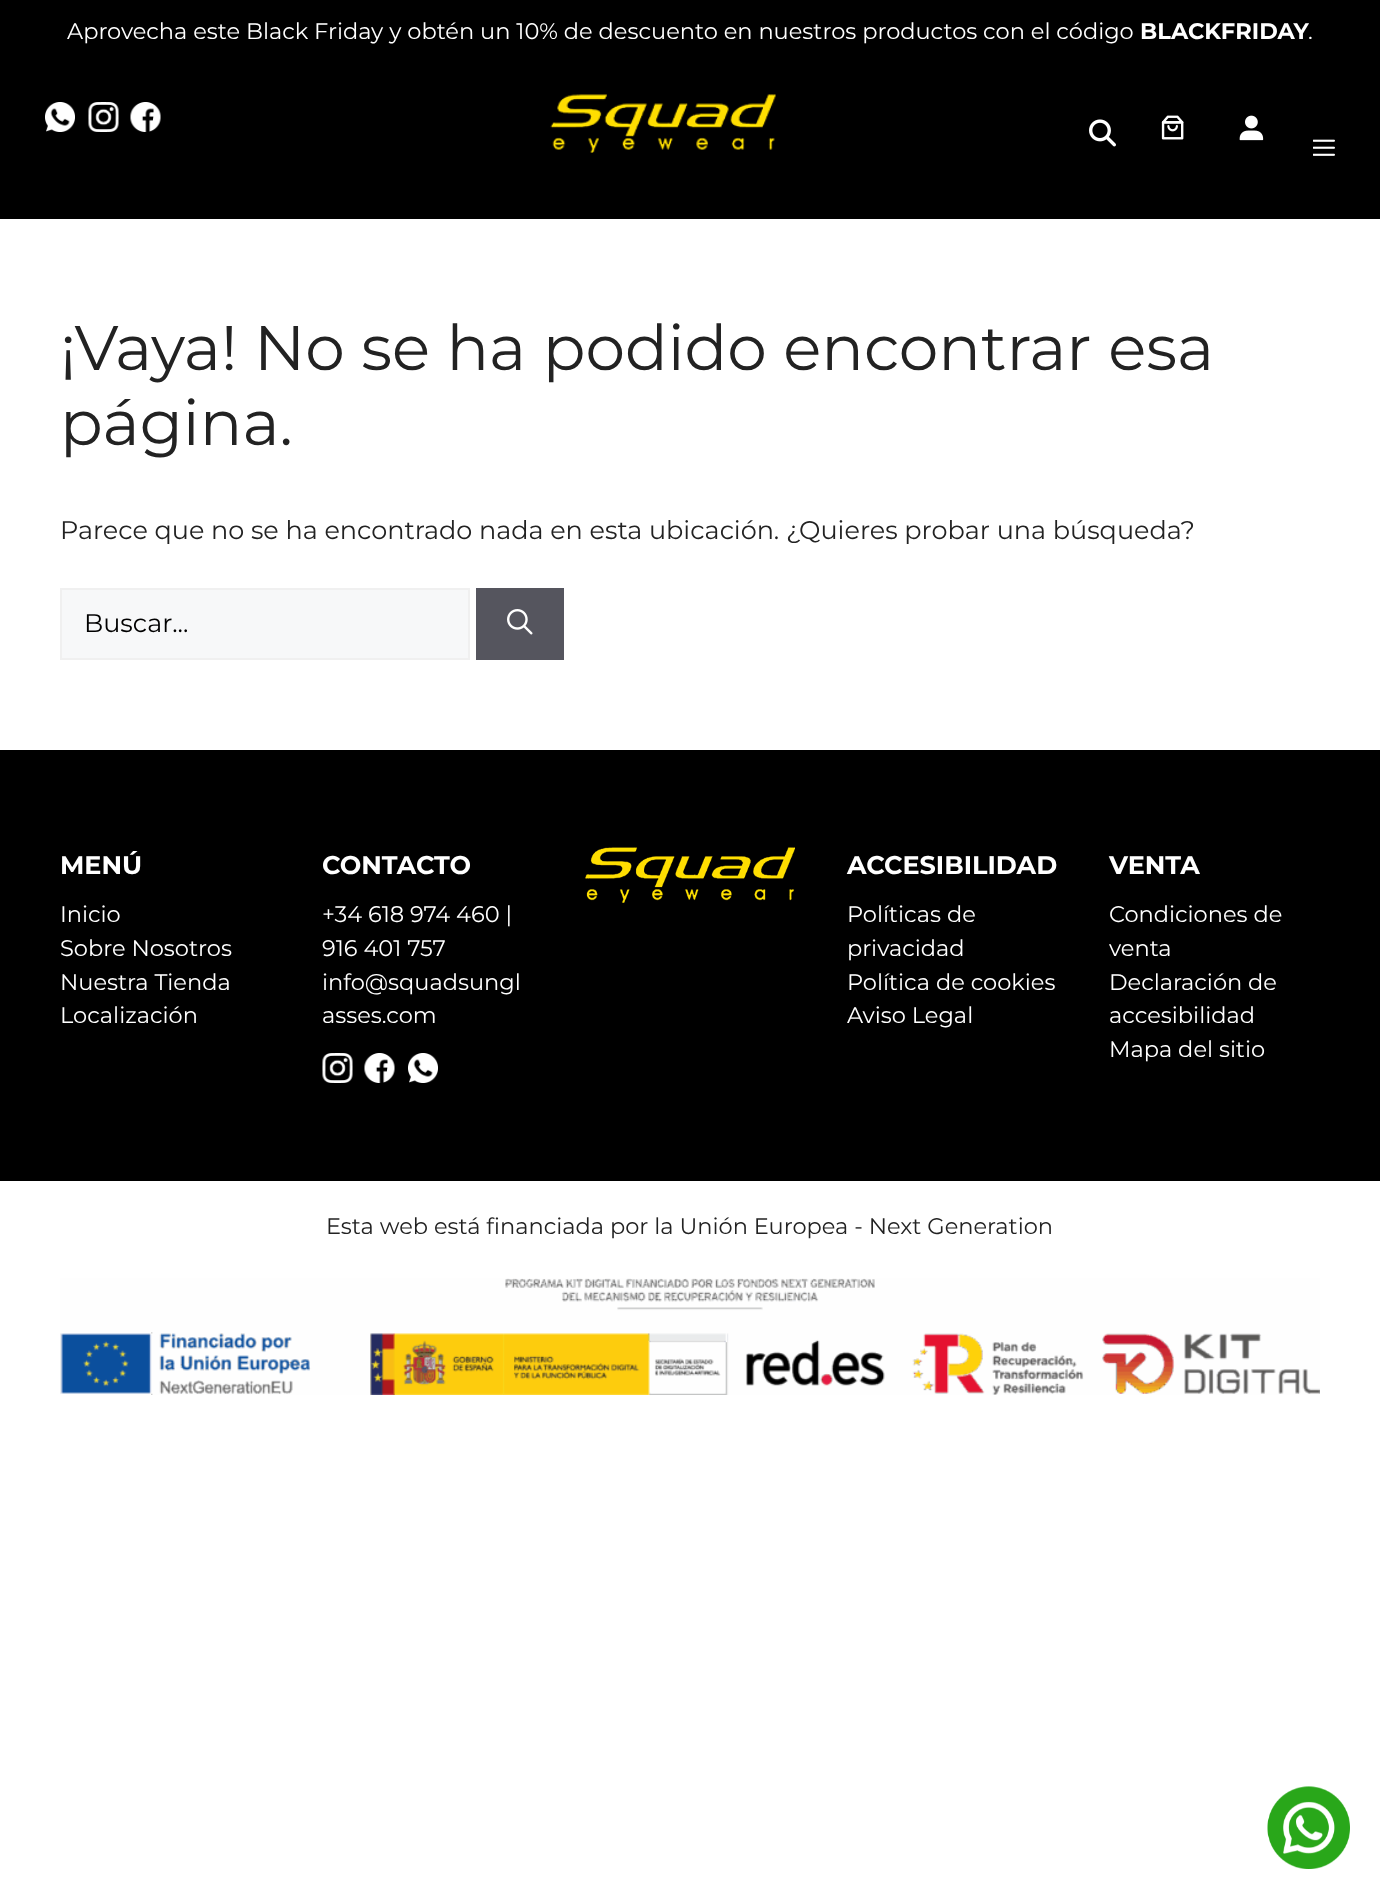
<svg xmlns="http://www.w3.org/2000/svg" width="1380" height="1894">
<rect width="100%" height="100%" fill="#fff"/>
<rect width="1380" height="219" fill="#000"/>
<image x="45" y="102" width="30" height="30" href="media/1.png"/>
<image x="88" y="102" width="31" height="30" href="media/2.png"/>
<image x="130" y="102" width="31" height="30" href="media/3.png"/>
<image x="550" y="94" width="226" height="59" href="media/4.png"/>
<image x="1089" y="119" width="27" height="28" href="media/5.png"/>
<image x="1161" y="115" width="23" height="25" href="media/6.png"/>
<image x="1239" y="115" width="25" height="26" href="media/7.png"/>
<image x="1313" y="139" width="22" height="17" href="media/8.png"/>
<text x="67" y="39" style="font-family:Montserrat;font-size:22.5px;fill:#fff">Aprovecha este Black Friday y obtén un 10% de descuento en nuestros productos con el código</text>
<text x="1140" y="39" style="font-family:Montserrat;font-size:22.5px;font-weight:bold;fill:#fff">BLACKFRIDAY</text>
<text x="1308" y="39" style="font-family:Montserrat;font-size:22.5px;fill:#fff">.</text>
<text x="60" y="370" style="font-family:Montserrat;font-size:63px;fill:#222">¡Vaya! No se ha podido encontrar esa</text>
<text x="60" y="445" style="font-family:Montserrat;font-size:63px;fill:#222">página.</text>
<text x="60" y="539" style="font-family:Montserrat;font-size:25.5px;fill:#222">Parece que no se ha encontrado nada en esta ubicación. ¿Quieres probar una búsqueda?</text>
<rect x="61" y="589" width="408" height="70" fill="#f7f8f9" stroke="#f0f0f0" stroke-width="2"/>
<text x="84" y="632" style="font-family:Montserrat;font-size:25.5px;fill:#000">Buscar...</text>
<rect x="476" y="588" width="88" height="72" fill="#55555e"/>
<image x="507" y="609" width="26" height="26" href="media/9.png"/>
<rect y="750" width="1380" height="431" fill="#000"/>
<text x="60" y="874" style="font-family:Montserrat;font-size:25.5px;font-weight:bold;fill:#fff">MENÚ</text>
<text x="60" y="922" style="font-family:Montserrat;font-size:22.5px;fill:#fff">Inicio</text>
<text x="60" y="956" style="font-family:Montserrat;font-size:22.5px;fill:#fff">Sobre Nosotros</text>
<text x="60" y="990" style="font-family:Montserrat;font-size:22.5px;fill:#fff">Nuestra Tienda</text>
<text x="60" y="1023" style="font-family:Montserrat;font-size:22.5px;fill:#fff">Localización</text>
<text x="322" y="874" style="font-family:Montserrat;font-size:25.5px;font-weight:bold;fill:#fff">CONTACTO</text>
<text x="322" y="922" style="font-family:Montserrat;font-size:22.5px;fill:#fff">+34 618 974 460 |</text>
<text x="322" y="956" style="font-family:Montserrat;font-size:22.5px;fill:#fff">916 401 757</text>
<text x="322" y="990" style="font-family:Montserrat;font-size:22.5px;fill:#fff">info@squadsungl</text>
<text x="322" y="1023" style="font-family:Montserrat;font-size:22.5px;fill:#fff">asses.com</text>
<image x="322" y="1053" width="31" height="30" href="media/2.png"/>
<image x="364" y="1053" width="31" height="30" href="media/3.png"/>
<image x="408" y="1053" width="30" height="30" href="media/10.png"/>
<image x="585" y="847" width="210" height="56" href="media/11.png"/>
<text x="847" y="874" style="font-family:Montserrat;font-size:25.5px;font-weight:bold;fill:#fff">ACCESIBILIDAD</text>
<text x="847" y="922" style="font-family:Montserrat;font-size:22.5px;fill:#fff">Políticas de</text>
<text x="847" y="956" style="font-family:Montserrat;font-size:22.5px;fill:#fff">privacidad</text>
<text x="847" y="990" style="font-family:Montserrat;font-size:22.5px;fill:#fff">Política de cookies</text>
<text x="847" y="1023" style="font-family:Montserrat;font-size:22.5px;fill:#fff">Aviso Legal</text>
<text x="1109" y="874" style="font-family:Montserrat;font-size:25.5px;font-weight:bold;fill:#fff">VENTA</text>
<text x="1109" y="922" style="font-family:Montserrat;font-size:22.5px;fill:#fff">Condiciones de</text>
<text x="1109" y="956" style="font-family:Montserrat;font-size:22.5px;fill:#fff">venta</text>
<text x="1109" y="990" style="font-family:Montserrat;font-size:22.5px;fill:#fff">Declaración de</text>
<text x="1109" y="1023" style="font-family:Montserrat;font-size:22.5px;fill:#fff">accesibilidad</text>
<text x="1109" y="1057" style="font-family:Montserrat;font-size:22.5px;fill:#fff">Mapa del sitio</text>
<text x="326" y="1234" style="font-family:Montserrat;font-size:22.5px;fill:#222">Esta web está financiada por la Unión Europea - Next Generation</text>
<image x="60" y="1278" width="1260" height="117" href="media/12.png"/>
<image x="1267" y="1786" width="83" height="83" href="media/13.png"/>
</svg>
